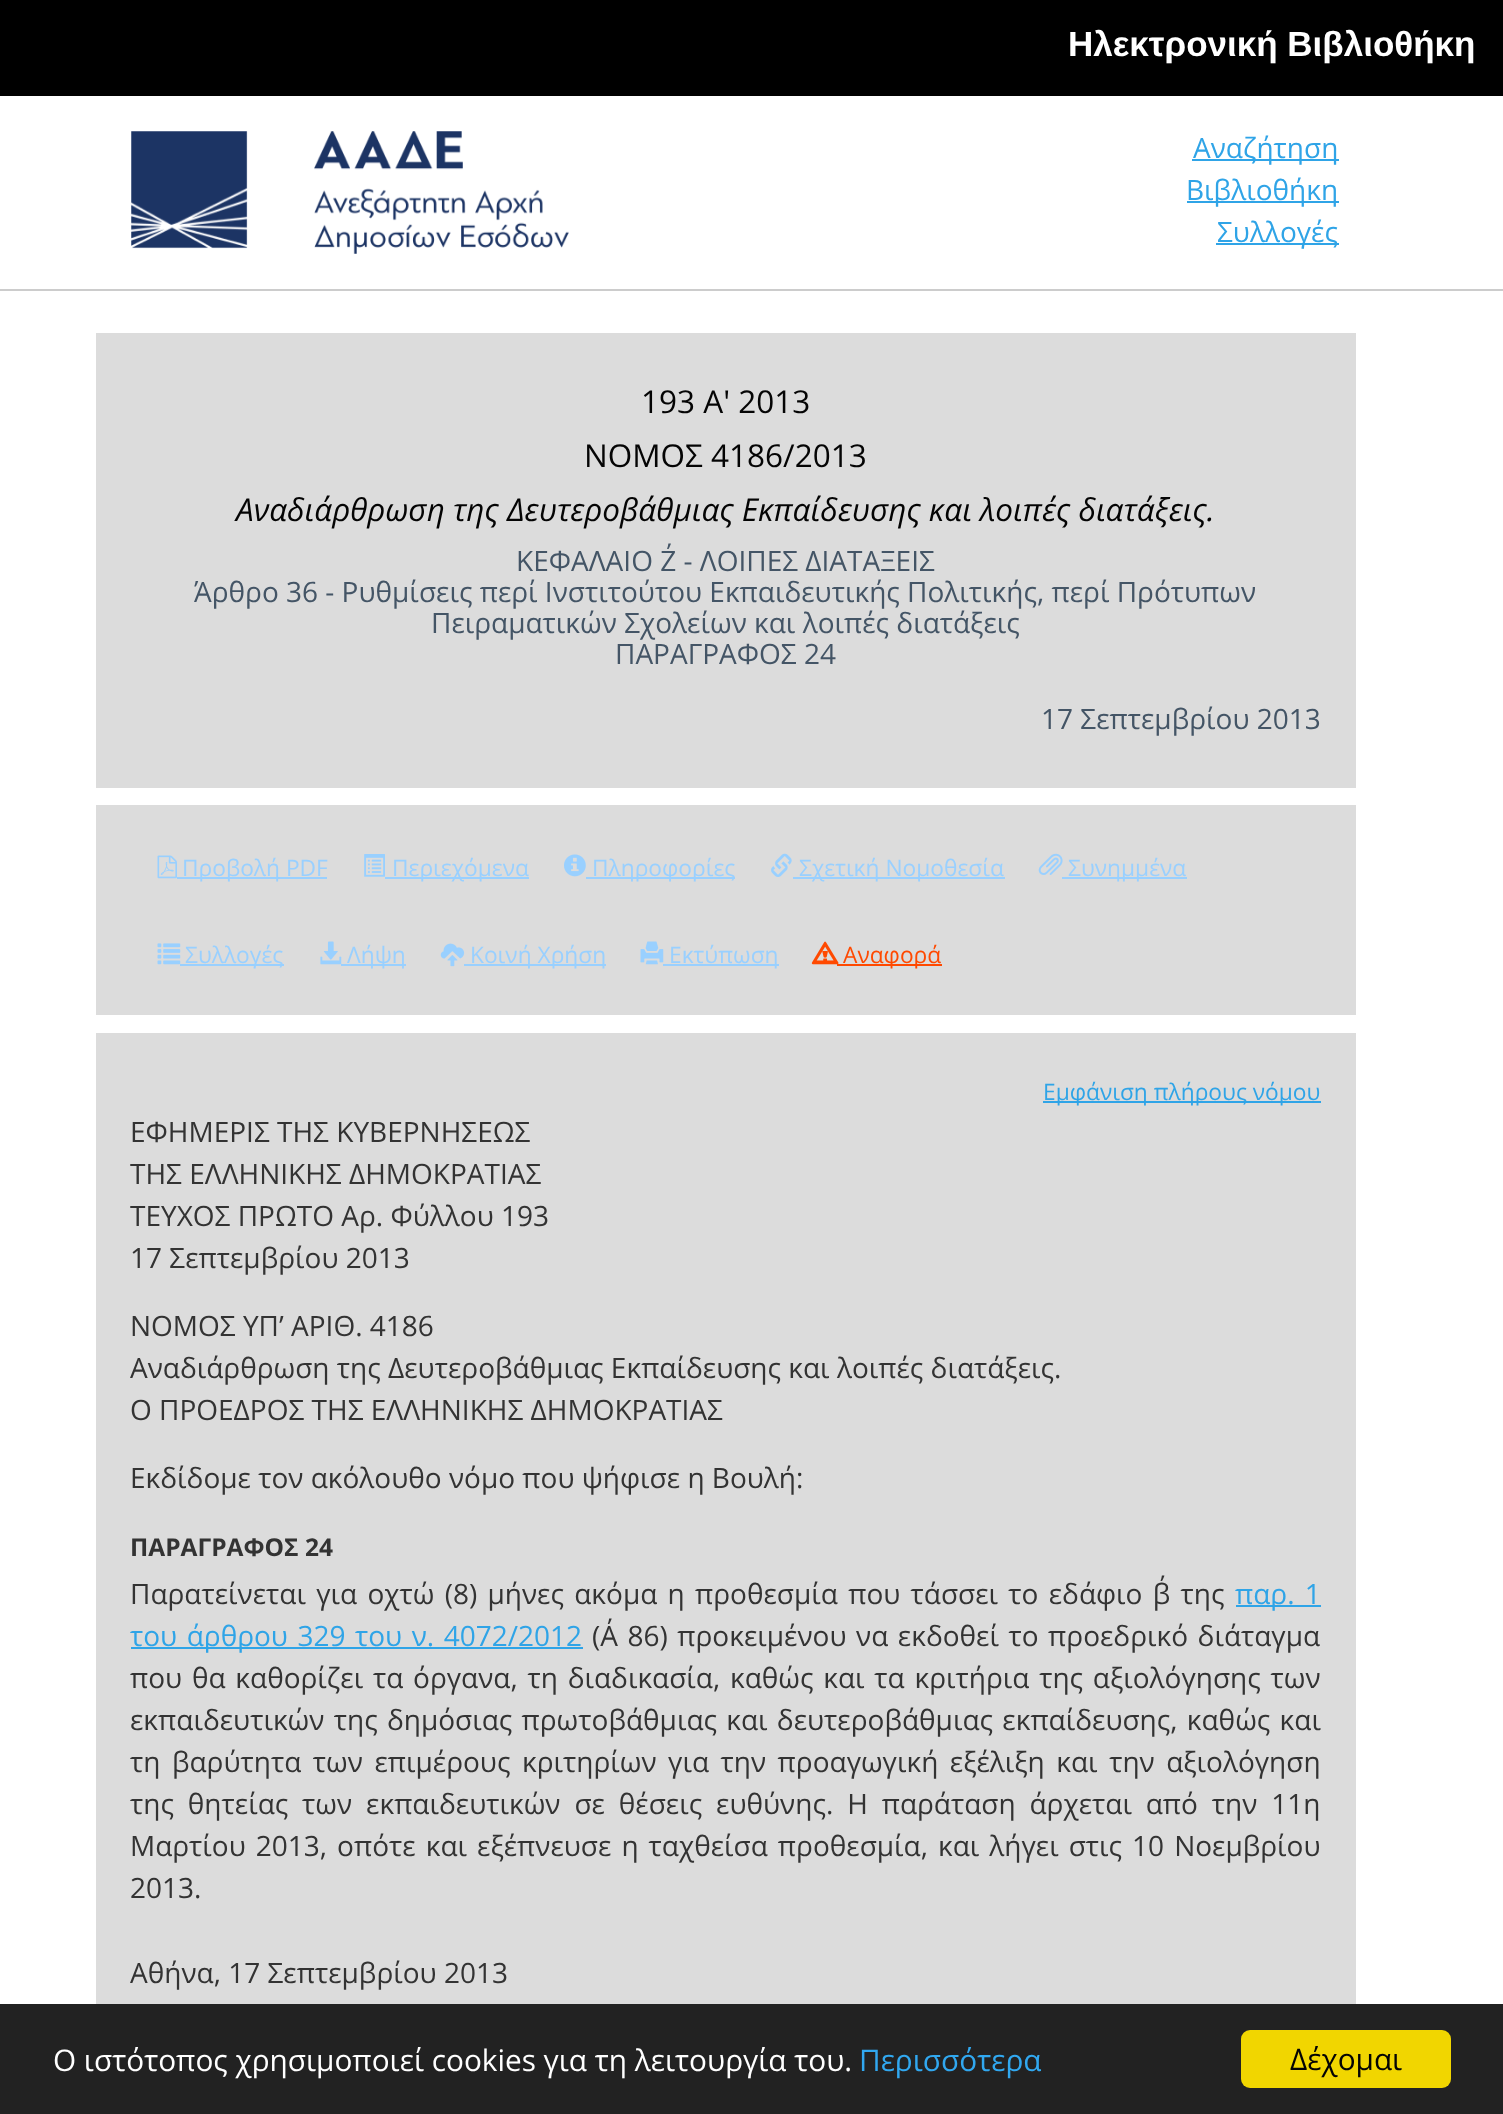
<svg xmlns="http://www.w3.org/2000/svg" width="1503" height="2114">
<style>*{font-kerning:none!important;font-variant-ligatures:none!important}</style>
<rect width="100%" height="100%" fill="#fff"/>
<rect y="289" width="1503" height="2" fill="#ccc"/>
<rect width="1503" height="96" fill="#000"/>
<text x="1068" y="56" style="font-family:Liberation Sans;font-size:35px;font-weight:bold;fill:#fff">Hλεκτρονική Βιβλιοθήκη</text>
<image x="131" y="131" width="438" height="123" href="media/1.png"/>
<rect x="1192" y="159" width="147" height="2" fill="#2fa4e7"/>
<text x="1193" y="158" style="font-family:Open Sans;font-size:28px;fill:#2fa4e7">Αναζήτηση</text>
<rect x="1187" y="201" width="152" height="2" fill="#2fa4e7"/>
<text x="1186" y="200" style="font-family:Open Sans;font-size:28px;fill:#2fa4e7">Βιβλιοθήκη</text>
<rect x="1216" y="243" width="123" height="2" fill="#2fa4e7"/>
<text x="1217" y="242" style="font-family:Open Sans;font-size:28px;fill:#2fa4e7">Συλλογές</text>
<rect x="96" y="333" width="1260" height="455" fill="#dcdcdc"/>
<text x="641" y="413" style="font-family:Open Sans;font-size:31.5px;fill:#040404">193 Α' 2013</text>
<text x="584" y="467" style="font-family:Open Sans;font-size:31.5px;fill:#040404">ΝΟΜΟΣ 4186/2013</text>
<text x="236" y="521" style="font-family:Open Sans;font-size:31.5px;font-style:italic;fill:#040404">Αναδιάρθρωση της Δευτεροβάθμιας Εκπαίδευσης και λοιπές διατάξεις.</text>
<text x="516" y="571" style="font-family:Open Sans;font-size:28px;fill:#456">ΚΕΦΑΛΑΙΟ Ζ΄ - ΛΟΙΠΕΣ ΔΙΑΤΑΞΕΙΣ</text>
<text x="194" y="602" style="font-family:Open Sans;font-size:28px;fill:#456">Άρθρο 36 - Ρυθμίσεις περί Ινστιτούτου Εκπαιδευτικής Πολιτικής, περί Πρότυπων</text>
<text x="431" y="633" style="font-family:Open Sans;font-size:28px;fill:#456">Πειραματικών Σχολείων και λοιπές διατάξεις</text>
<text x="615" y="664" style="font-family:Open Sans;font-size:28px;fill:#456">ΠΑΡΑΓΡΑΦΟΣ 24</text>
<text x="1041" y="729" style="font-family:Open Sans;font-size:28px;fill:#456">17 Σεπτεμβρίου 2013</text>
<rect x="96" y="805" width="1260" height="210" fill="#dcdcdc"/>
<image x="157" y="855" width="20" height="24" href="media/2.png"/>
<rect x="177" y="877" width="150" height="2" fill="#99d0ff"/>
<text x="182" y="876" style="font-family:Open Sans;font-size:22.75px;fill:#99d0ff">Προβολή PDF</text>
<image x="364" y="854" width="21" height="23" href="media/3.png"/>
<rect x="385" y="877" width="144" height="2" fill="#99d0ff"/>
<text x="392" y="876" style="font-family:Open Sans;font-size:22.75px;fill:#99d0ff">Περιεχόμενα</text>
<image x="564" y="854" width="22" height="23" href="media/4.png"/>
<rect x="586" y="877" width="149" height="2" fill="#99d0ff"/>
<text x="592" y="876" style="font-family:Open Sans;font-size:22.75px;fill:#99d0ff">Πληροφορίες</text>
<image x="771" y="853" width="21" height="24" href="media/5.png"/>
<rect x="793" y="877" width="212" height="2" fill="#99d0ff"/>
<text x="799" y="876" style="font-family:Open Sans;font-size:22.75px;fill:#99d0ff">Σχετική Νομοθεσία</text>
<image x="1038" y="853" width="25" height="22" href="media/6.png"/>
<rect x="1062" y="877" width="125" height="2" fill="#99d0ff"/>
<text x="1068" y="876" style="font-family:Open Sans;font-size:22.75px;fill:#99d0ff">Συνημμένα</text>
<rect x="180" y="964" width="104" height="2" fill="#99d0ff"/>
<image x="157" y="943" width="24" height="22" href="media/7.png"/>
<text x="185" y="963" style="font-family:Open Sans;font-size:22.75px;fill:#99d0ff">Συλλογές</text>
<rect x="341" y="964" width="65" height="2" fill="#99d0ff"/>
<image x="320" y="941" width="22" height="24" href="media/8.png"/>
<text x="347" y="963" style="font-family:Open Sans;font-size:22.75px;fill:#99d0ff">Λήψη</text>
<rect x="464" y="964" width="142" height="2" fill="#99d0ff"/>
<image x="440" y="943" width="25" height="24" href="media/9.png"/>
<text x="470" y="963" style="font-family:Open Sans;font-size:22.75px;fill:#99d0ff">Κοινή Χρήση</text>
<rect x="663" y="964" width="116" height="2" fill="#99d0ff"/>
<image x="640" y="941" width="24" height="24" href="media/10.png"/>
<text x="669" y="963" style="font-family:Open Sans;font-size:22.75px;fill:#99d0ff">Εκτύπωση</text>
<rect x="837" y="964" width="105" height="2" fill="#ff4900"/>
<image x="811" y="941" width="28" height="24" href="media/11.png"/>
<text x="843" y="963" style="font-family:Open Sans;font-size:22.75px;fill:#ff4900">Αναφορά</text>
<rect x="96" y="1033" width="1260" height="971" fill="#dcdcdc"/>
<rect x="1043" y="1101" width="278" height="2" fill="#2fa4e7"/>
<text x="1043" y="1100" style="font-family:Open Sans;font-size:22.75px;fill:#2fa4e7">Εμφάνιση πλήρους νόμου</text>
<text x="130" y="1142" style="font-family:Open Sans;font-size:28px;fill:#333">ΕΦΗΜΕΡΙΣ ΤΗΣ ΚΥΒΕΡΝΗΣΕΩΣ</text>
<text x="130" y="1184" style="font-family:Open Sans;font-size:28px;fill:#333">ΤΗΣ ΕΛΛΗΝΙΚΗΣ ΔΗΜΟΚΡΑΤΙΑΣ</text>
<text x="130" y="1226" style="font-family:Open Sans;font-size:28px;fill:#333">ΤΕΥΧΟΣ ΠΡΩΤΟ Αρ. Φύλλου 193</text>
<text x="130" y="1268" style="font-family:Open Sans;font-size:28px;fill:#333">17 Σεπτεμβρίου 2013</text>
<text x="130" y="1336" style="font-family:Open Sans;font-size:28px;fill:#333">ΝΟΜΟΣ ΥΠ’ ΑΡΙΘ. 4186</text>
<text x="130" y="1378" style="font-family:Open Sans;font-size:28px;fill:#333">Αναδιάρθρωση της Δευτεροβάθμιας Εκπαίδευσης και λοιπές διατάξεις.</text>
<text x="130" y="1420" style="font-family:Open Sans;font-size:28px;fill:#333">Ο ΠΡΟΕΔΡΟΣ ΤΗΣ ΕΛΛΗΝΙΚΗΣ ΔΗΜΟΚΡΑΤΙΑΣ</text>
<text x="130" y="1488" style="font-family:Open Sans;font-size:28px;fill:#333">Εκδίδομε τον ακόλουθο νόμο που ψήφισε η Βουλή:</text>
<text x="130" y="1556" style="font-family:Open Sans;font-size:24.5px;font-weight:bold;fill:#333">ΠΑΡΑΓΡΑΦΟΣ 24</text>
<text x="130" y="1604" word-spacing="3" style="font-family:Open Sans;font-size:28px;fill:#333">Παρατείνεται για οχτώ (8) μήνες ακόμα η προθεσμία που τάσσει το εδάφιο β΄ της</text>
<rect x="1236" y="1605" width="85" height="2" fill="#2fa4e7"/>
<text x="1235" y="1604" word-spacing="3" style="font-family:Open Sans;font-size:28px;fill:#2fa4e7">παρ. 1</text>
<rect x="131" y="1647" width="452" height="2" fill="#2fa4e7"/>
<text x="130" y="1646" word-spacing="2.25" style="font-family:Open Sans;font-size:28px;fill:#2fa4e7">του άρθρου 329 του ν. 4072/2012</text>
<text x="592" y="1646" word-spacing="2.25" style="font-family:Open Sans;font-size:28px;fill:#333">(Α΄ 86) προκειμένου να εκδοθεί το προεδρικό διάταγμα</text>
<text x="130" y="1688" word-spacing="2.5" style="font-family:Open Sans;font-size:28px;fill:#333">που θα καθορίζει τα όργανα, τη διαδικασία, καθώς και τα κριτήρια της αξιολόγησης των</text>
<text x="130" y="1730" word-spacing="2" style="font-family:Open Sans;font-size:28px;fill:#333">εκπαιδευτικών της δημόσιας πρωτοβάθμιας και δευτεροβάθμιας εκπαίδευσης, καθώς και</text>
<text x="130" y="1772" word-spacing="4.25" style="font-family:Open Sans;font-size:28px;fill:#333">τη βαρύτητα των επιμέρους κριτηρίων για την προαγωγική εξέλιξη και την αξιολόγηση</text>
<text x="130" y="1814" word-spacing="6.6" style="font-family:Open Sans;font-size:28px;fill:#333">της θητείας των εκπαιδευτικών σε θέσεις ευθύνης. Η παράταση άρχεται από την 11η</text>
<text x="130" y="1856" word-spacing="2.75" style="font-family:Open Sans;font-size:28px;fill:#333">Μαρτίου 2013, οπότε και εξέπνευσε η ταχθείσα προθεσμία, και λήγει στις 10 Νοεμβρίου</text>
<text x="130" y="1898" style="font-family:Open Sans;font-size:28px;fill:#333">2013.</text>
<text x="130" y="1983" style="font-family:Open Sans;font-size:28px;fill:#333">Αθήνα, 17 Σεπτεμβρίου 2013</text>
<rect y="2004" width="1503" height="110" fill="#222"/>
<text x="53" y="2071" style="font-family:Open Sans;font-size:29.75px;fill:#fff">Ο ιστότοπος χρησιμοποιεί cookies για τη λειτουργία του.</text>
<text x="859" y="2071" style="font-family:Open Sans;font-size:29.75px;fill:#31a8f0">Περισσότερα</text>
<rect x="1241" y="2030" width="210" height="58" rx="9" fill="#f1d600"/>
<text x="1290" y="2070" style="font-family:Open Sans;font-size:29.75px;fill:#040404">Δέχομαι</text>
</svg>
